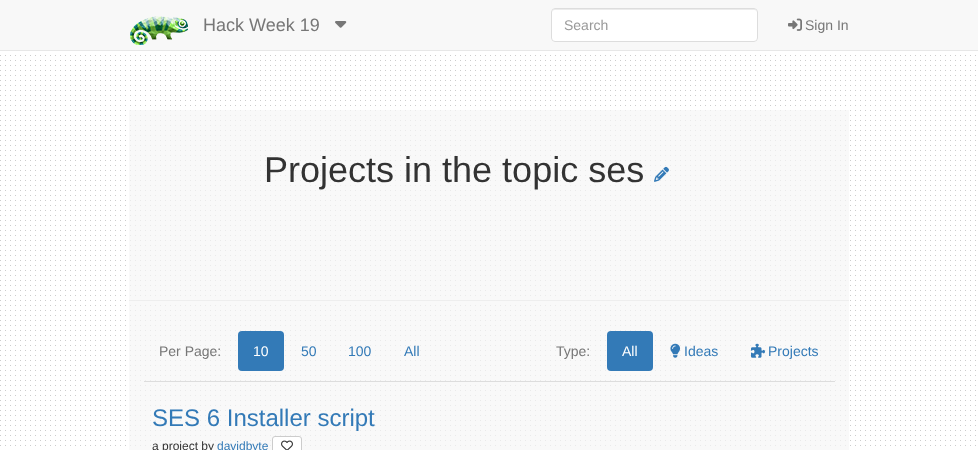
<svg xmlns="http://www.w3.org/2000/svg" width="978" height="450">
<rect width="100%" height="100%" fill="#fff"/>
<image x="0" y="51" width="976" height="395" href="media/1.png"/>
<rect width="978" height="50" fill="#f8f8f8"/>
<rect y="50" width="978" height="1" fill="#e7e7e7"/>
<image x="130" y="16" width="58" height="29" href="media/2.png"/>
<text x="203" y="31" style="font-family:Liberation Sans;font-size:18px;fill:#777">Hack Week 19</text>
<image x="335" y="21" width="12" height="7" href="media/3.png"/>
<rect x="551" y="8" width="207" height="34" rx="4" fill="#fff"/>
<path d="M555 10h199c2 0 3 1 3 3c0-2-1-4-3-4h-199c-2 0-3 2-3 4c0-2 1-3 3-3z" fill="#ececec"/>
<rect x="551.5" y="8.5" width="206" height="33" rx="3.5" fill="none" stroke="#ddd"/>
<text x="564" y="30" style="font-family:Liberation Sans;font-size:14px;fill:#999">Search</text>
<image x="788" y="18" width="14" height="13" href="media/4.png"/>
<text x="805" y="30" style="font-family:Liberation Sans;font-size:14px;fill:#777">Sign In</text>
<rect x="129" y="110" width="720" height="340" fill="#f6f6f6b3"/>
<text x="264" y="182" style="font-family:Liberation Sans;font-size:36px;fill:#333">Projects in the topic ses</text>
<image x="654" y="166" width="15" height="16" href="media/5.png"/>
<rect x="129" y="300" width="720" height="1" fill="#eee"/>
<text x="159" y="356" style="font-family:Liberation Sans;font-size:14px;fill:#777">Per Page:</text>
<rect x="238" y="331" width="46" height="40" rx="4" fill="#337ab7"/>
<text x="253" y="356" style="font-family:Liberation Sans;font-size:14px;fill:#fff">10</text>
<text x="301" y="356" style="font-family:Liberation Sans;font-size:14px;fill:#337ab7">50</text>
<text x="348" y="356" style="font-family:Liberation Sans;font-size:14px;fill:#337ab7">100</text>
<text x="404" y="356" style="font-family:Liberation Sans;font-size:14px;fill:#337ab7">All</text>
<text x="556" y="356" style="font-family:Liberation Sans;font-size:14px;fill:#777">Type:</text>
<rect x="607" y="331" width="46" height="40" rx="4" fill="#337ab7"/>
<text x="622" y="356" style="font-family:Liberation Sans;font-size:14px;fill:#fff">All</text>
<image x="670" y="343" width="11" height="15" href="media/6.png"/>
<text x="684" y="356" style="font-family:Liberation Sans;font-size:14px;fill:#337ab7">Ideas</text>
<image x="751" y="343" width="14" height="15" href="media/7.png"/>
<text x="768" y="356" style="font-family:Liberation Sans;font-size:14px;fill:#337ab7">Projects</text>
<rect x="144" y="381" width="691" height="1" fill="#ddd"/>
<text x="152" y="426" style="font-family:Liberation Sans;font-size:24px;fill:#337ab7">SES 6 Installer script</text>
<text x="152" y="450" style="font-family:Liberation Sans;font-size:12px;fill:#333">a project by</text>
<text x="217" y="450" style="font-family:Liberation Sans;font-size:12px;fill:#337ab7">davidbyte</text>
<rect x="272.5" y="436.5" width="29" height="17" rx="2.5" fill="#fff" stroke="#ccc"/>
<image x="281" y="440" width="12" height="10" href="media/8.png"/>
</svg>
